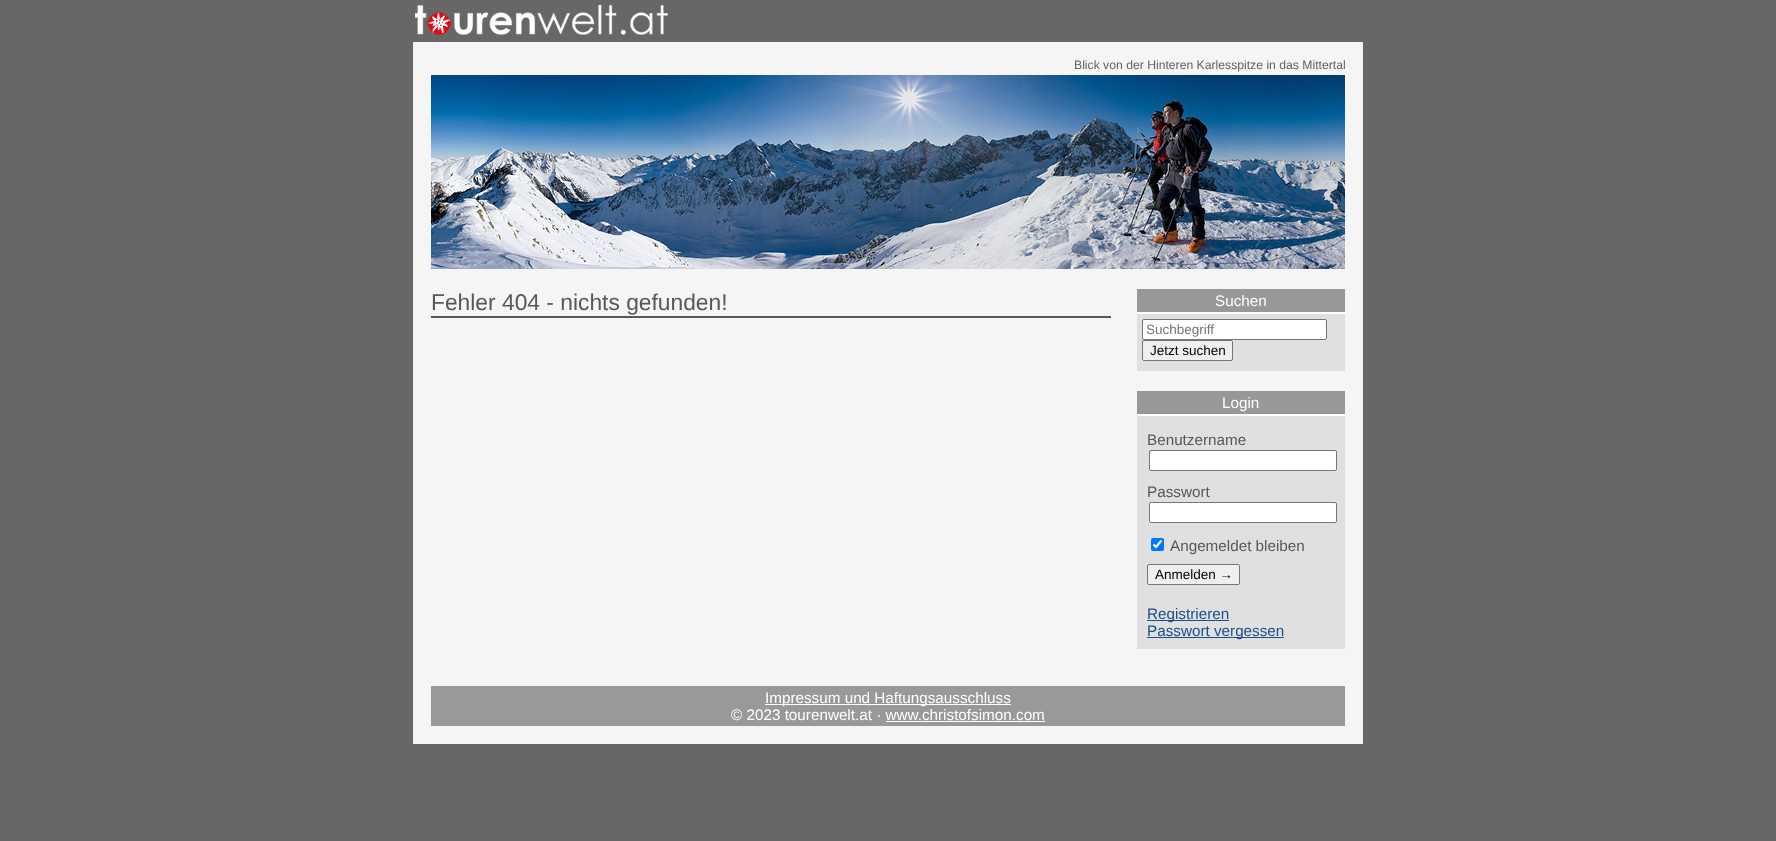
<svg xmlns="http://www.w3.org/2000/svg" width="1776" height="841">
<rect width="100%" height="100%" fill="#676767"/>
<image x="415" y="5" width="253" height="30" href="media/1.png"/>
<rect x="413" y="42" width="950" height="702" fill="#f5f5f5"/>
<text x="1074" y="69" style="font-family:Liberation Sans;font-size:12.2px;fill:#616161">Blick von der Hinteren Karlesspitze in das Mittertal</text>
<image x="431" y="75" width="914" height="194" href="media/2.png"/>
<rect x="431" y="316" width="680" height="2" fill="#585858"/>
<text x="431" y="310" style="font-family:Liberation Sans;font-size:22.8px;fill:#585858">Fehler 404 - nichts gefunden!</text>
<rect x="1137" y="314" width="208" height="57" fill="#e0e0e0"/>
<rect x="1137" y="289" width="208" height="23" fill="#979898"/>
<rect x="1137" y="312" width="208" height="2" fill="#fff"/>
<text x="1215" y="306" style="font-family:Liberation Sans;font-size:15.25px;fill:#fff">Suchen</text>
<rect x="1142.5" y="319.5" width="184" height="20" rx="1.5" fill="#fff" stroke="#767676"/>
<text x="1146" y="334" style="font-family:Liberation Sans;font-size:13.5px;fill:#757575">Suchbegriff</text>
<rect x="1142.5" y="340.5" width="90" height="20" rx="1.5" fill="#efefef" stroke="#767676"/>
<text x="1150" y="355" style="font-family:Liberation Sans;font-size:13.5px;fill:#000">Jetzt suchen</text>
<rect x="1137" y="416" width="208" height="233" fill="#e0e0e0"/>
<rect x="1137" y="391" width="208" height="23" fill="#979898"/>
<rect x="1137" y="414" width="208" height="2" fill="#fff"/>
<text x="1222" y="408" style="font-family:Liberation Sans;font-size:15.25px;fill:#fff">Login</text>
<text x="1147" y="445" style="font-family:Liberation Sans;font-size:15.25px;fill:#585858">Benutzername</text>
<rect x="1149.5" y="450.5" width="187" height="20" rx="1.5" fill="#fff" stroke="#767676"/>
<text x="1147" y="497" style="font-family:Liberation Sans;font-size:15.25px;fill:#585858">Passwort</text>
<rect x="1149.5" y="502.5" width="187" height="20" rx="1.5" fill="#fff" stroke="#767676"/>
<rect x="1151" y="538" width="13" height="13" rx="2" fill="#0075ff"/>
<path d="M1153.5 544.5l2.5 2.5l5.5-6.5" fill="none" stroke="#fff" stroke-width="2.1"/>
<text x="1170" y="551" style="font-family:Liberation Sans;font-size:15.25px;fill:#585858">Angemeldet bleiben</text>
<rect x="1147.5" y="564.5" width="92" height="20" rx="1.5" fill="#efefef" stroke="#767676"/>
<text x="1155" y="579" style="font-family:Liberation Sans;font-size:13.5px;fill:#000">Anmelden →</text>
<rect x="1147" y="620" width="82" height="1" fill="#1c4e89"/>
<text x="1147" y="619" style="font-family:Liberation Sans;font-size:15.25px;fill:#1c4e89">Registrieren</text>
<rect x="1147" y="637" width="137" height="1" fill="#1c4e89"/>
<text x="1147" y="636" style="font-family:Liberation Sans;font-size:15.25px;fill:#1c4e89">Passwort vergessen</text>
<rect x="431" y="686" width="914" height="40" fill="#999"/>
<rect x="765" y="704" width="246" height="1" fill="#fff"/>
<text x="765" y="703" style="font-family:Liberation Sans;font-size:15.25px;fill:#fff">Impressum und Haftungsausschluss</text>
<text x="731" y="720" style="font-family:Liberation Sans;font-size:15.25px;fill:#fff">© 2023 tourenwelt.at · www.christofsimon.com</text>
<rect x="886" y="721" width="159" height="1" fill="#fff"/>
</svg>
